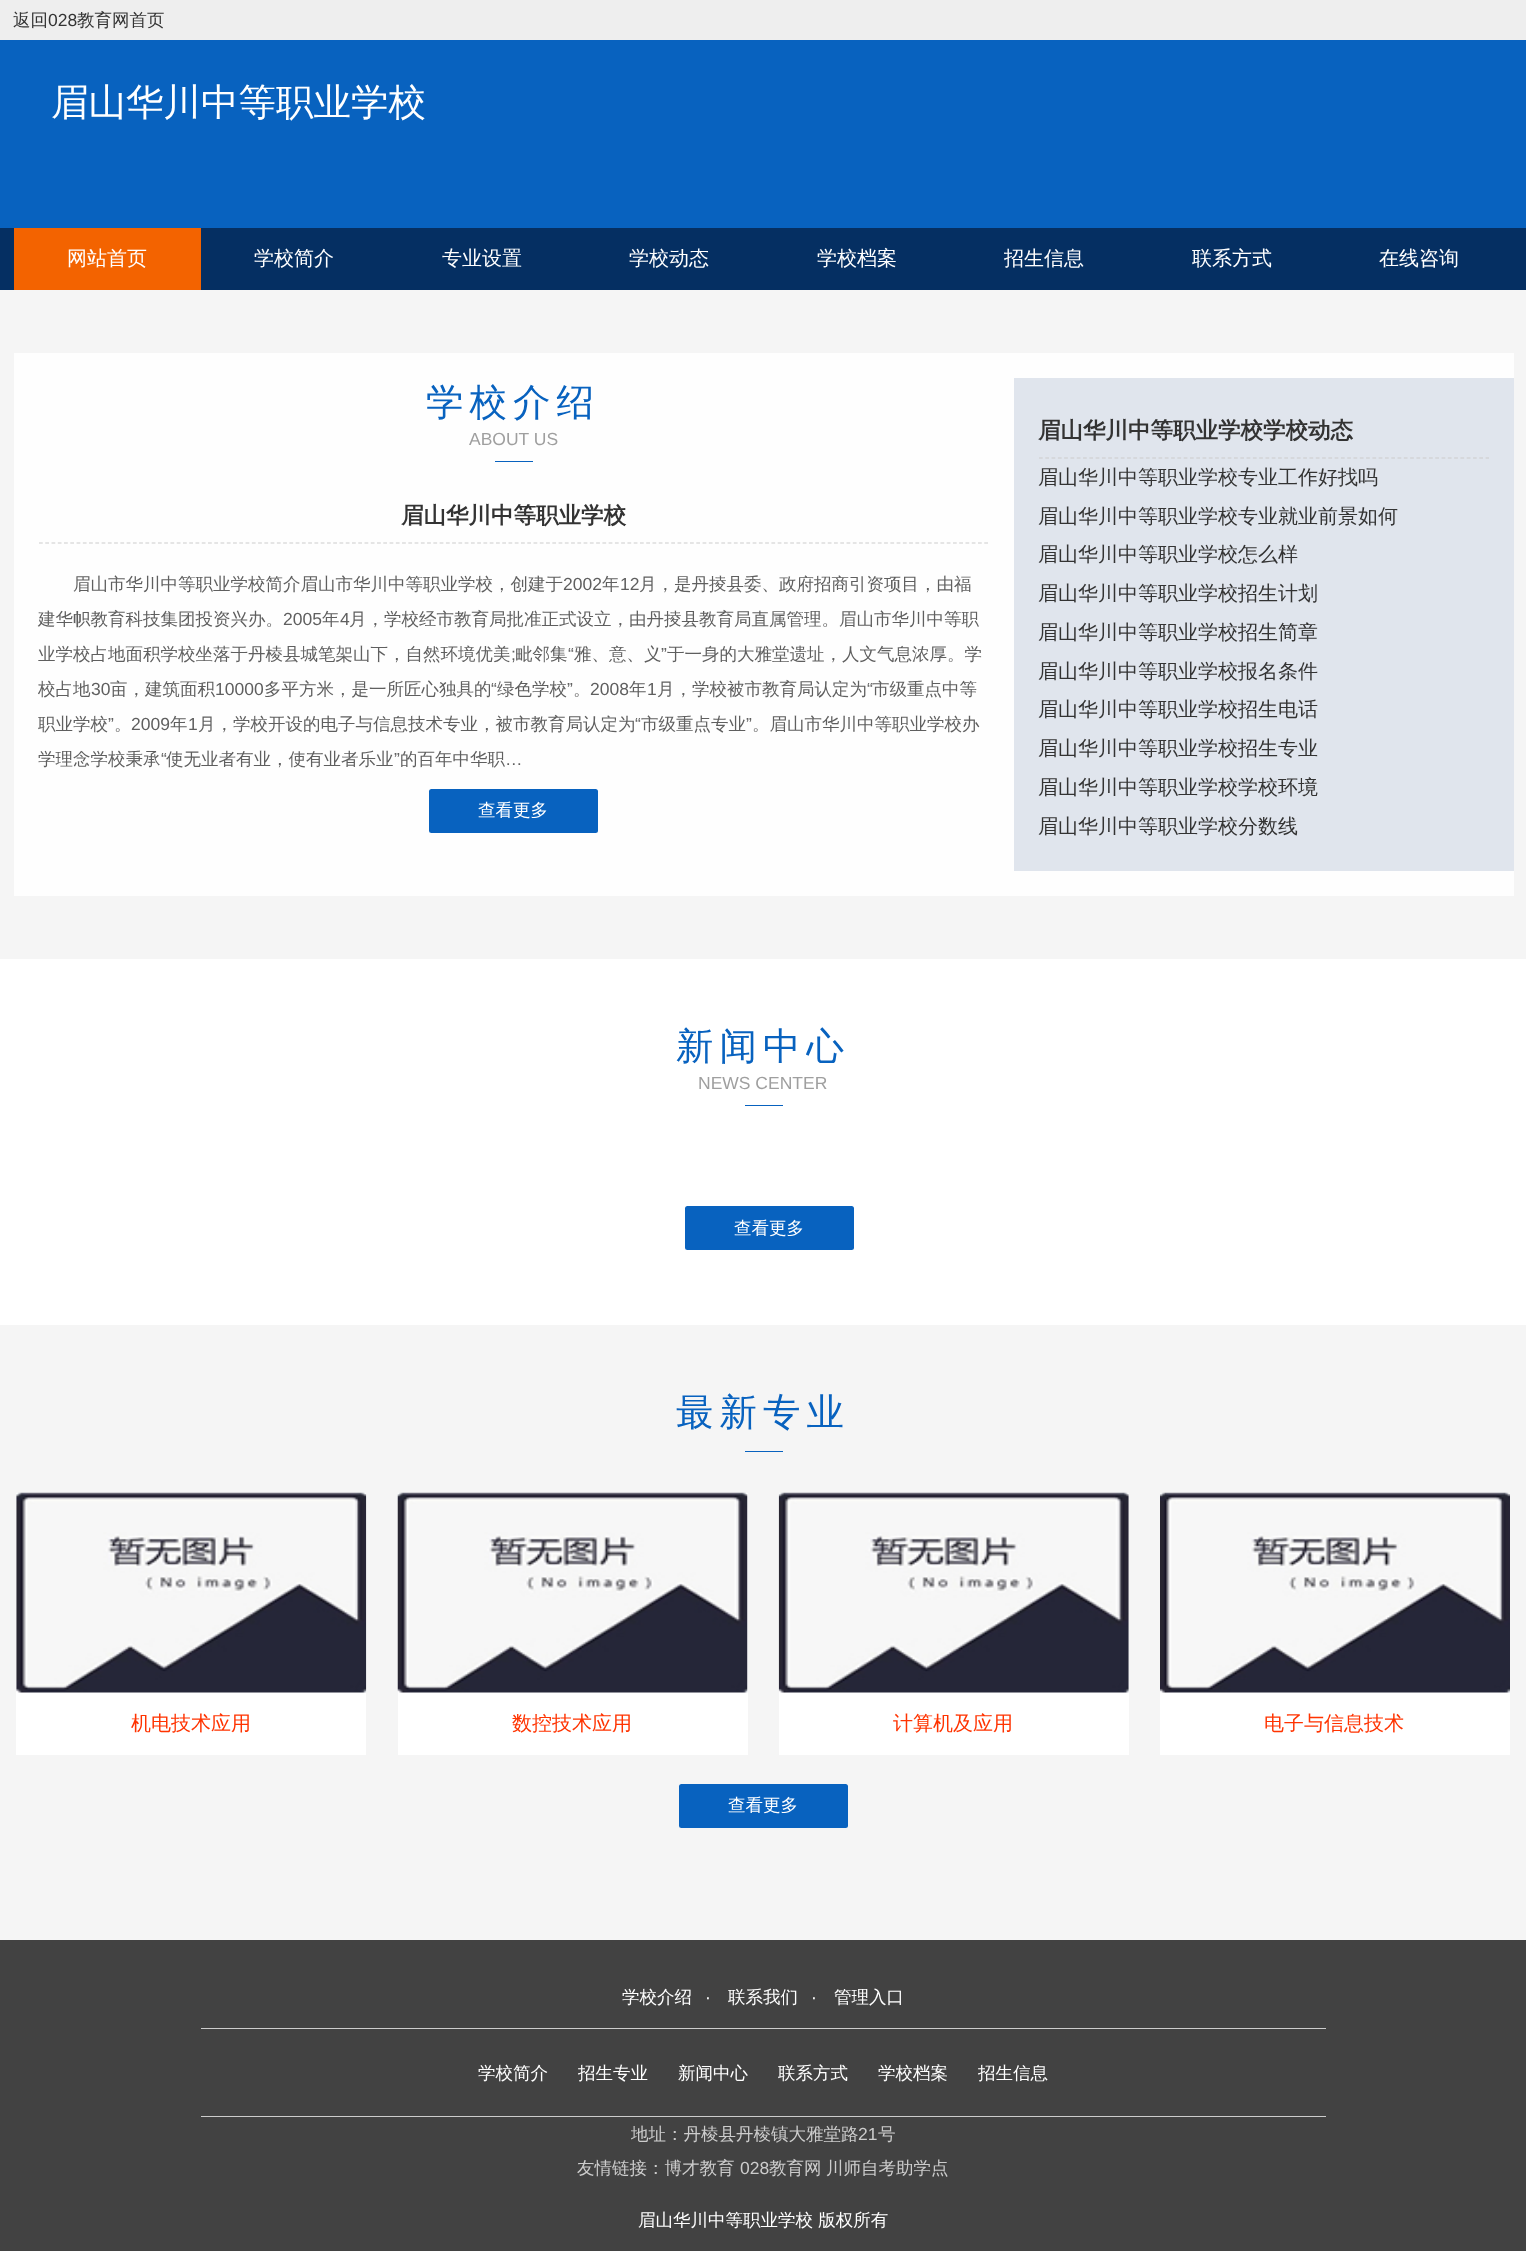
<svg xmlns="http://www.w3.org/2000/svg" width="1526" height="2251">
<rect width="100%" height="100%" fill="#f5f5f5"/>
<rect width="1526" height="40" fill="#eee"/>
<text x="13" y="26" style="font-family:WenQuanYi Zen Hei;font-size:17.5px;font-weight:500;fill:#333">返回</text>
<text x="48" y="26" style="font-family:Liberation Sans;font-size:17.5px;fill:#333">028</text>
<text x="77" y="26" style="font-family:WenQuanYi Zen Hei;font-size:17.5px;font-weight:500;fill:#333">教育网首页</text>
<rect y="40" width="1526" height="188" fill="#0862bf"/>
<text x="51" y="115" style="font-family:WenQuanYi Zen Hei;font-size:37.5px;font-weight:500;fill:#fff">眉山华川中等职业学校</text>
<rect y="228" width="1526" height="62" fill="#052f62"/>
<rect x="14" y="228" width="187" height="62" fill="#f36300"/>
<text x="67" y="265" style="font-family:WenQuanYi Zen Hei;font-size:20px;font-weight:500;fill:#fff">网站首页</text>
<text x="254" y="265" style="font-family:WenQuanYi Zen Hei;font-size:20px;font-weight:500;fill:#fff">学校简介</text>
<text x="442" y="265" style="font-family:WenQuanYi Zen Hei;font-size:20px;font-weight:500;fill:#fff">专业设置</text>
<text x="629" y="265" style="font-family:WenQuanYi Zen Hei;font-size:20px;font-weight:500;fill:#fff">学校动态</text>
<text x="817" y="265" style="font-family:WenQuanYi Zen Hei;font-size:20px;font-weight:500;fill:#fff">学校档案</text>
<text x="1004" y="265" style="font-family:WenQuanYi Zen Hei;font-size:20px;font-weight:500;fill:#fff">招生信息</text>
<text x="1192" y="265" style="font-family:WenQuanYi Zen Hei;font-size:20px;font-weight:500;fill:#fff">联系方式</text>
<text x="1379" y="265" style="font-family:WenQuanYi Zen Hei;font-size:20px;font-weight:500;fill:#fff">在线咨询</text>
<rect x="14" y="353" width="1500" height="543" fill="#fefefe"/>
<text x="426" y="415" style="font-family:WenQuanYi Zen Hei;font-size:37.5px;font-weight:500;letter-spacing:6px;fill:#0862bf">学校介绍</text>
<text x="469" y="445" style="font-family:Liberation Sans;font-size:17.5px;fill:#9f9f9f">ABOUT US</text>
<rect x="495" y="461" width="38" height="1" fill="#0862bf"/>
<path d="M39 543h950" fill="none" stroke="#ccc" stroke-width="1.2" stroke-dasharray="3.75 2.51"/>
<text x="401" y="523" style="font-family:WenQuanYi Zen Hei;font-size:22.5px;font-weight:bold;fill:#333">眉山华川中等职业学校</text>
<text x="73" y="590" style="font-family:WenQuanYi Zen Hei;font-size:17.5px;font-weight:500;fill:#5f5f5f">眉山市华川中等职业学校简介眉山市华川中等职业学校，创建于</text>
<text x="563" y="590" style="font-family:Liberation Sans;font-size:17.5px;fill:#5f5f5f">2002</text>
<text x="602" y="590" style="font-family:WenQuanYi Zen Hei;font-size:17.5px;font-weight:500;fill:#5f5f5f">年</text>
<text x="620" y="590" style="font-family:Liberation Sans;font-size:17.5px;fill:#5f5f5f">12</text>
<text x="639" y="590" style="font-family:WenQuanYi Zen Hei;font-size:17.5px;font-weight:500;fill:#5f5f5f">月，是丹掕县委、政府招商引资项目，由福</text>
<text x="38" y="625" style="font-family:WenQuanYi Zen Hei;font-size:17.5px;font-weight:500;fill:#5f5f5f">建华帜教育科技集团投资兴办。</text>
<text x="283" y="625" style="font-family:Liberation Sans;font-size:17.5px;fill:#5f5f5f">2005</text>
<text x="322" y="625" style="font-family:WenQuanYi Zen Hei;font-size:17.5px;font-weight:500;fill:#5f5f5f">年</text>
<text x="340" y="625" style="font-family:Liberation Sans;font-size:17.5px;fill:#5f5f5f">4</text>
<text x="349" y="625" style="font-family:WenQuanYi Zen Hei;font-size:17.5px;font-weight:500;fill:#5f5f5f">月，学校经市教育局批准正式设立，由丹掕县教育局直属管理。眉山市华川中等职</text>
<text x="38" y="660" style="font-family:WenQuanYi Zen Hei;font-size:17.5px;font-weight:500;fill:#5f5f5f">业学校占地面积学校坐落于丹棱县城笔架山下，自然环境优美</text>
<text x="515" y="660" style="font-family:WenQuanYi Zen Hei;font-size:17.5px;font-weight:500;fill:#5f5f5f">毗邻集</text>
<text x="568" y="660" style="font-family:Liberation Sans;font-size:17.5px;fill:#5f5f5f">“</text>
<text x="574" y="660" style="font-family:WenQuanYi Zen Hei;font-size:17.5px;font-weight:500;fill:#5f5f5f">雅、意、义</text>
<text x="661" y="660" style="font-family:Liberation Sans;font-size:17.5px;fill:#5f5f5f">”</text>
<text x="667" y="660" style="font-family:WenQuanYi Zen Hei;font-size:17.5px;font-weight:500;fill:#5f5f5f">于一身的大雅堂遗址，人文气息浓厚。学</text>
<text x="511" y="660" style="font-family:Liberation Sans;font-size:17.5px;fill:#5f5f5f">;</text>
<text x="38" y="695" style="font-family:WenQuanYi Zen Hei;font-size:17.5px;font-weight:500;fill:#5f5f5f">校占地</text>
<text x="91" y="695" style="font-family:Liberation Sans;font-size:17.5px;fill:#5f5f5f">30</text>
<text x="110" y="695" style="font-family:WenQuanYi Zen Hei;font-size:17.5px;font-weight:500;fill:#5f5f5f">亩，建筑面积</text>
<text x="215" y="695" style="font-family:Liberation Sans;font-size:17.5px;fill:#5f5f5f">10000</text>
<text x="264" y="695" style="font-family:WenQuanYi Zen Hei;font-size:17.5px;font-weight:500;fill:#5f5f5f">多平方米，是一所匠心独具的</text>
<text x="491" y="695" style="font-family:Liberation Sans;font-size:17.5px;fill:#5f5f5f">“</text>
<text x="497" y="695" style="font-family:WenQuanYi Zen Hei;font-size:17.5px;font-weight:500;fill:#5f5f5f">绿色学校</text>
<text x="567" y="695" style="font-family:Liberation Sans;font-size:17.5px;fill:#5f5f5f">”</text>
<text x="590" y="695" style="font-family:Liberation Sans;font-size:17.5px;fill:#5f5f5f">2008</text>
<text x="629" y="695" style="font-family:WenQuanYi Zen Hei;font-size:17.5px;font-weight:500;fill:#5f5f5f">年</text>
<text x="647" y="695" style="font-family:Liberation Sans;font-size:17.5px;fill:#5f5f5f">1</text>
<text x="657" y="695" style="font-family:WenQuanYi Zen Hei;font-size:17.5px;font-weight:500;fill:#5f5f5f">月，学校被市教育局认定为</text>
<text x="867" y="695" style="font-family:Liberation Sans;font-size:17.5px;fill:#5f5f5f">“</text>
<text x="872" y="695" style="font-family:WenQuanYi Zen Hei;font-size:17.5px;font-weight:500;fill:#5f5f5f">市级重点中等</text>
<text x="573" y="695" style="font-family:WenQuanYi Zen Hei;font-size:17.5px;font-weight:500;fill:#5f5f5f">。</text>
<text x="38" y="730" style="font-family:WenQuanYi Zen Hei;font-size:17.5px;font-weight:500;fill:#5f5f5f">职业学校</text>
<text x="108" y="730" style="font-family:Liberation Sans;font-size:17.5px;fill:#5f5f5f">”</text>
<text x="131" y="730" style="font-family:Liberation Sans;font-size:17.5px;fill:#5f5f5f">2009</text>
<text x="170" y="730" style="font-family:WenQuanYi Zen Hei;font-size:17.5px;font-weight:500;fill:#5f5f5f">年</text>
<text x="188" y="730" style="font-family:Liberation Sans;font-size:17.5px;fill:#5f5f5f">1</text>
<text x="198" y="730" style="font-family:WenQuanYi Zen Hei;font-size:17.5px;font-weight:500;fill:#5f5f5f">月，学校开设的电子与信息技术专业，被市教育局认定为</text>
<text x="635" y="730" style="font-family:Liberation Sans;font-size:17.5px;fill:#5f5f5f">“</text>
<text x="641" y="730" style="font-family:WenQuanYi Zen Hei;font-size:17.5px;font-weight:500;fill:#5f5f5f">市级重点专业</text>
<text x="746" y="730" style="font-family:Liberation Sans;font-size:17.5px;fill:#5f5f5f">”</text>
<text x="752" y="730" style="font-family:WenQuanYi Zen Hei;font-size:17.5px;font-weight:500;fill:#5f5f5f">。眉山市华川中等职业学校办</text>
<text x="114" y="730" style="font-family:WenQuanYi Zen Hei;font-size:17.5px;font-weight:500;fill:#5f5f5f">。</text>
<text x="38" y="765" style="font-family:WenQuanYi Zen Hei;font-size:17.5px;font-weight:500;fill:#5f5f5f">学理念学校秉承</text>
<text x="161" y="765" style="font-family:Liberation Sans;font-size:17.5px;fill:#5f5f5f">“</text>
<text x="166" y="765" style="font-family:WenQuanYi Zen Hei;font-size:17.5px;font-weight:500;fill:#5f5f5f">使无业者有业，使有业者乐业</text>
<text x="394" y="765" style="font-family:Liberation Sans;font-size:17.5px;fill:#5f5f5f">”</text>
<text x="400" y="765" style="font-family:WenQuanYi Zen Hei;font-size:17.5px;font-weight:500;fill:#5f5f5f">的百年中华职</text>
<text x="505" y="765" style="font-family:Liberation Sans;font-size:17.5px;fill:#5f5f5f">…</text>
<rect x="429" y="789" width="169" height="44" rx="2.5" fill="#0862bf"/>
<text x="478" y="816" style="font-family:WenQuanYi Zen Hei;font-size:17.5px;font-weight:500;fill:#fff">查看更多</text>
<rect x="1014" y="378" width="500" height="493" fill="#e0e5ed"/>
<path d="M1039 458h450" fill="none" stroke="#ccc" stroke-width="1.2" stroke-dasharray="3.75 2.54"/>
<text x="1038" y="438" style="font-family:WenQuanYi Zen Hei;font-size:22.5px;font-weight:bold;fill:#333">眉山华川中等职业学校学校动态</text>
<text x="1038" y="484" style="font-family:WenQuanYi Zen Hei;font-size:20px;font-weight:500;fill:#333">眉山华川中等职业学校专业工作好找吗</text>
<text x="1038" y="523" style="font-family:WenQuanYi Zen Hei;font-size:20px;font-weight:500;fill:#333">眉山华川中等职业学校专业就业前景如何</text>
<text x="1038" y="561" style="font-family:WenQuanYi Zen Hei;font-size:20px;font-weight:500;fill:#333">眉山华川中等职业学校怎么样</text>
<text x="1038" y="600" style="font-family:WenQuanYi Zen Hei;font-size:20px;font-weight:500;fill:#333">眉山华川中等职业学校招生计划</text>
<text x="1038" y="639" style="font-family:WenQuanYi Zen Hei;font-size:20px;font-weight:500;fill:#333">眉山华川中等职业学校招生简章</text>
<text x="1038" y="678" style="font-family:WenQuanYi Zen Hei;font-size:20px;font-weight:500;fill:#333">眉山华川中等职业学校报名条件</text>
<text x="1038" y="716" style="font-family:WenQuanYi Zen Hei;font-size:20px;font-weight:500;fill:#333">眉山华川中等职业学校招生电话</text>
<text x="1038" y="755" style="font-family:WenQuanYi Zen Hei;font-size:20px;font-weight:500;fill:#333">眉山华川中等职业学校招生专业</text>
<text x="1038" y="794" style="font-family:WenQuanYi Zen Hei;font-size:20px;font-weight:500;fill:#333">眉山华川中等职业学校学校环境</text>
<text x="1038" y="833" style="font-family:WenQuanYi Zen Hei;font-size:20px;font-weight:500;fill:#333">眉山华川中等职业学校分数线</text>
<rect y="959" width="1526" height="366" fill="#fff"/>
<text x="676" y="1059" style="font-family:WenQuanYi Zen Hei;font-size:37.5px;font-weight:500;letter-spacing:6px;fill:#0862bf">新闻中心</text>
<text x="698" y="1089" style="font-family:Liberation Sans;font-size:17.5px;fill:#9f9f9f">NEWS CENTER</text>
<rect x="745" y="1105" width="38" height="1" fill="#0862bf"/>
<rect x="685" y="1206" width="169" height="44" rx="2.5" fill="#0862bf"/>
<text x="734" y="1234" style="font-family:WenQuanYi Zen Hei;font-size:17.5px;font-weight:500;fill:#fff">查看更多</text>
<text x="676" y="1425" style="font-family:WenQuanYi Zen Hei;font-size:37.5px;font-weight:500;letter-spacing:6px;fill:#0862bf">最新专业</text>
<rect x="745" y="1451" width="38" height="1" fill="#0862bf"/>
<rect x="16" y="1493" width="350" height="262" fill="#fff"/>
<image x="16" y="1492" width="351" height="201" href="media/1.png"/>
<text x="131" y="1730" style="font-family:WenQuanYi Zen Hei;font-size:20px;font-weight:500;fill:#f30">机电技术应用</text>
<rect x="398" y="1493" width="350" height="262" fill="#fff"/>
<image x="397" y="1492" width="351" height="201" href="media/2.png"/>
<text x="512" y="1730" style="font-family:WenQuanYi Zen Hei;font-size:20px;font-weight:500;fill:#f30">数控技术应用</text>
<rect x="779" y="1493" width="350" height="262" fill="#fff"/>
<image x="778" y="1492" width="351" height="201" href="media/3.png"/>
<text x="893" y="1730" style="font-family:WenQuanYi Zen Hei;font-size:20px;font-weight:500;fill:#f30">计算机及应用</text>
<rect x="1160" y="1692" width="350" height="63" fill="#fff"/>
<image x="1160" y="1492" width="350" height="201" href="media/4.png"/>
<text x="1264" y="1730" style="font-family:WenQuanYi Zen Hei;font-size:20px;font-weight:500;fill:#f30">电子与信息技术</text>
<rect x="679" y="1784" width="169" height="44" rx="2.5" fill="#0862bf"/>
<text x="728" y="1811" style="font-family:WenQuanYi Zen Hei;font-size:17.5px;font-weight:500;fill:#fff">查看更多</text>
<rect y="1940" width="1526" height="311" fill="#424242"/>
<text x="622" y="2003" style="font-family:WenQuanYi Zen Hei;font-size:17.5px;font-weight:500;fill:#fff">学校介绍</text>
<text x="705" y="2003" style="font-family:Liberation Sans;font-size:17.5px;fill:#fff">·</text>
<text x="728" y="2003" style="font-family:WenQuanYi Zen Hei;font-size:17.5px;font-weight:500;fill:#fff">联系我们</text>
<text x="811" y="2003" style="font-family:Liberation Sans;font-size:17.5px;fill:#fff">·</text>
<text x="834" y="2003" style="font-family:WenQuanYi Zen Hei;font-size:17.5px;font-weight:500;fill:#fff">管理入口</text>
<rect x="201" y="2028" width="1125" height="1" fill="#ccc"/>
<rect x="201" y="2116" width="1125" height="1" fill="#ccc"/>
<text x="478" y="2079" style="font-family:WenQuanYi Zen Hei;font-size:17.5px;font-weight:500;fill:#fff">学校简介</text>
<text x="578" y="2079" style="font-family:WenQuanYi Zen Hei;font-size:17.5px;font-weight:500;fill:#fff">招生专业</text>
<text x="678" y="2079" style="font-family:WenQuanYi Zen Hei;font-size:17.5px;font-weight:500;fill:#fff">新闻中心</text>
<text x="778" y="2079" style="font-family:WenQuanYi Zen Hei;font-size:17.5px;font-weight:500;fill:#fff">联系方式</text>
<text x="878" y="2079" style="font-family:WenQuanYi Zen Hei;font-size:17.5px;font-weight:500;fill:#fff">学校档案</text>
<text x="978" y="2079" style="font-family:WenQuanYi Zen Hei;font-size:17.5px;font-weight:500;fill:#fff">招生信息</text>
<text x="631" y="2140" style="font-family:WenQuanYi Zen Hei;font-size:17.5px;font-weight:500;fill:#ccc">地址：丹棱县丹棱镇大雅堂路</text>
<text x="858" y="2140" style="font-family:Liberation Sans;font-size:17.5px;fill:#ccc">21</text>
<text x="878" y="2140" style="font-family:WenQuanYi Zen Hei;font-size:17.5px;font-weight:500;fill:#ccc">号</text>
<text x="577" y="2174" style="font-family:WenQuanYi Zen Hei;font-size:17.5px;font-weight:500;fill:#ccc">友情链接：博才教育</text>
<text x="740" y="2174" style="font-family:Liberation Sans;font-size:17.5px;fill:#ccc">028</text>
<text x="769" y="2174" style="font-family:WenQuanYi Zen Hei;font-size:17.5px;font-weight:500;fill:#ccc">教育网</text>
<text x="826" y="2174" style="font-family:WenQuanYi Zen Hei;font-size:17.5px;font-weight:500;fill:#ccc">川师自考助学点</text>
<text x="638" y="2226" style="font-family:WenQuanYi Zen Hei;font-size:17.5px;font-weight:500;fill:#fff">眉山华川中等职业学校 版权所有</text>
</svg>
